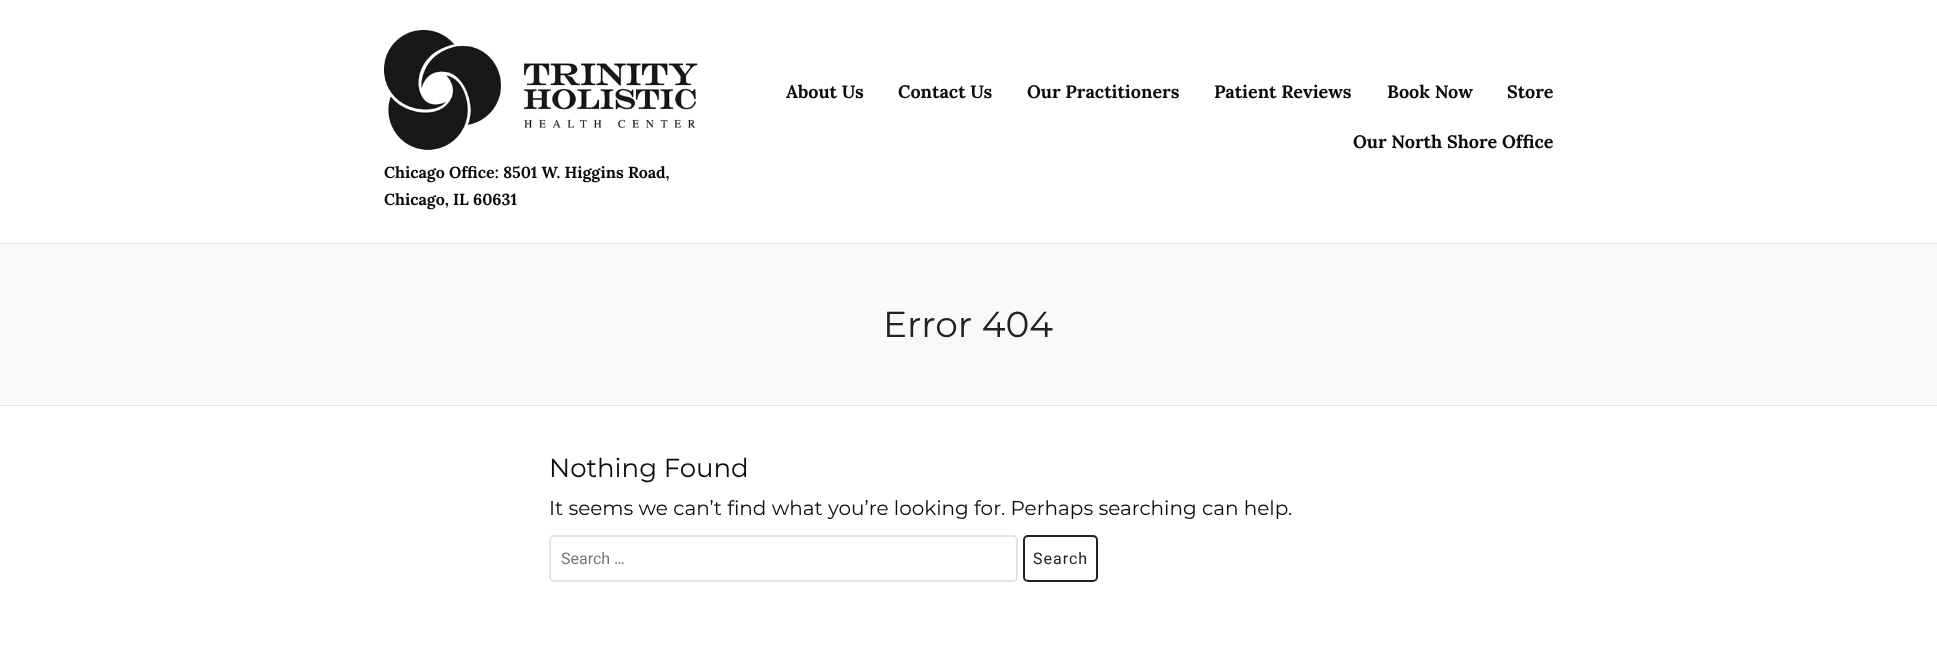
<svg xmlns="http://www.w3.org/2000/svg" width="1937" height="648">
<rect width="100%" height="100%" fill="#fff"/>
<text x="786" y="98" style="font-family:Lora;font-size:18px;font-weight:bold;fill:#0c0c0c">About Us</text>
<text x="898" y="98" style="font-family:Lora;font-size:18px;font-weight:bold;fill:#0c0c0c">Contact Us</text>
<text x="1027" y="98" style="font-family:Lora;font-size:18px;font-weight:bold;fill:#0c0c0c">Our Practitioners</text>
<text x="1214" y="98" style="font-family:Lora;font-size:18px;font-weight:bold;fill:#0c0c0c">Patient Reviews</text>
<text x="1387" y="98" style="font-family:Lora;font-size:18px;font-weight:bold;fill:#0c0c0c">Book Now</text>
<text x="1507" y="98" style="font-family:Lora;font-size:18px;font-weight:bold;fill:#0c0c0c">Store</text>
<text x="1353" y="148" style="font-family:Lora;font-size:18px;font-weight:bold;fill:#0c0c0c">Our North Shore Office</text>
<image x="384" y="30" width="314" height="120" href="media/1.png"/>
<text x="384" y="178" style="font-family:Lora;font-size:16px;font-weight:bold;fill:#0c0c0c">Chicago Office: 8501 W. Higgins Road,</text>
<text x="384" y="205" style="font-family:Lora;font-size:16px;font-weight:bold;fill:#0c0c0c">Chicago, IL 60631</text>
<rect y="244" width="1937" height="161" fill="#f9f9f9"/>
<rect y="243" width="1937" height="1" fill="#e4e4e4"/>
<rect y="405" width="1937" height="1" fill="#e4e4e4"/>
<text x="883" y="337" style="font-family:Montserrat;font-size:36px;fill:#222">Error 404</text>
<text x="549" y="477" style="font-family:Montserrat;font-size:26px;fill:#0c0c0c">Nothing Found</text>
<text x="549" y="515" style="font-family:Montserrat;font-size:20px;fill:#0c0c0c">It seems we can’t find what you’re looking for. Perhaps searching can help.</text>
<rect x="550" y="536" width="467" height="45" rx="4" fill="none" stroke="#e5e5e5" stroke-width="2"/>
<text x="561" y="564" style="font-family:Roboto;font-size:16px;fill:#757575">Search …</text>
<rect x="1024" y="536" width="73" height="45" rx="4" fill="none" stroke="#222" stroke-width="2"/>
<text x="1033" y="564" style="font-family:Roboto;font-size:16px;letter-spacing:1px;fill:#222">Search</text>
</svg>
